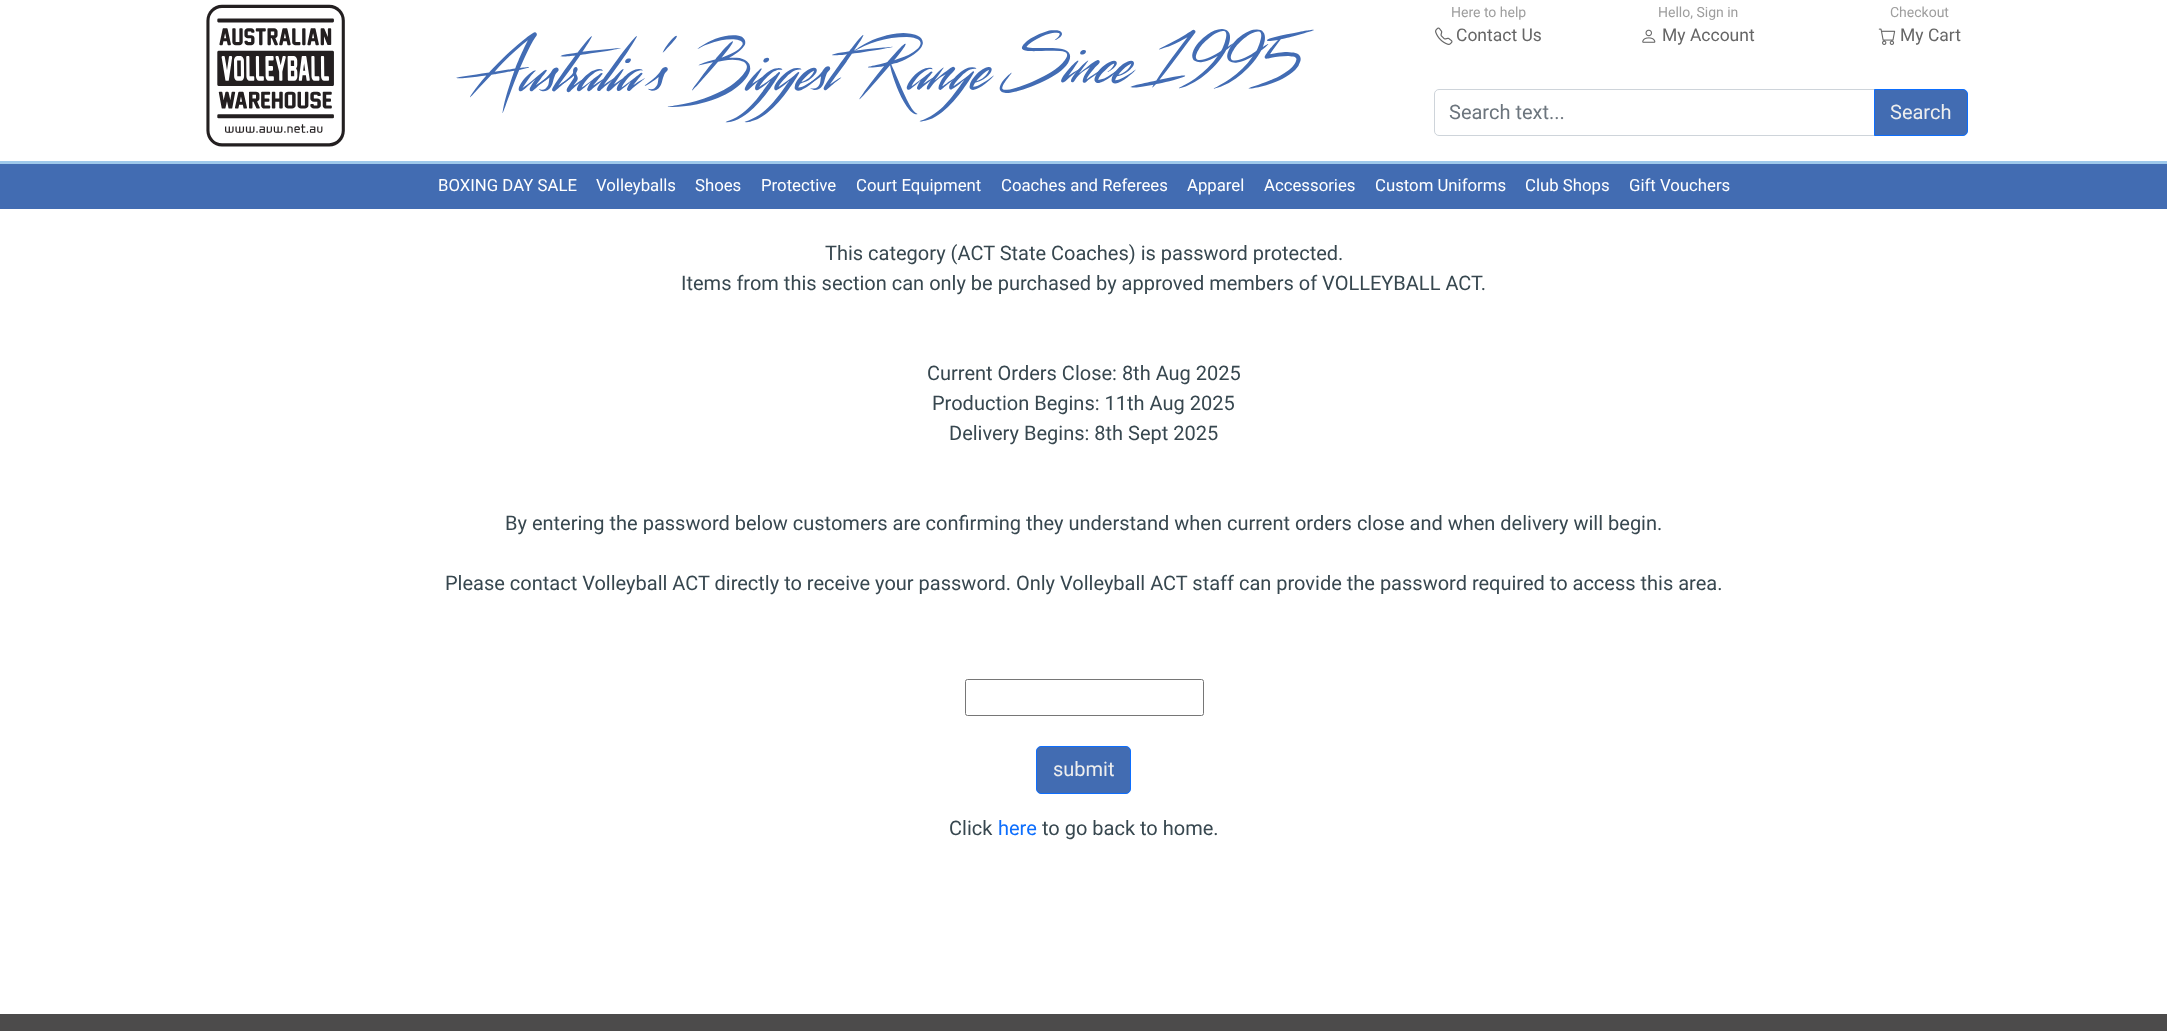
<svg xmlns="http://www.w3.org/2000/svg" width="2167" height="1031">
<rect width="100%" height="100%" fill="#fff"/>
<image x="206" y="4" width="139" height="143" href="media/1.png"/>
<image x="456" y="29" width="858" height="94" href="media/2.png"/>
<text x="1451" y="17" style="font-family:Roboto;font-size:14px;fill:#9e9e9e">Here to help</text>
<image x="1435" y="27" width="18" height="18" href="media/3.png"/>
<text x="1456" y="41" style="font-family:Roboto;font-size:17.5px;fill:#666">Contact Us</text>
<text x="1658" y="17" style="font-family:Roboto;font-size:14px;fill:#9e9e9e">Hello, Sign in</text>
<image x="1642" y="29" width="14" height="14" href="media/4.png"/>
<text x="1662" y="41" style="font-family:Roboto;font-size:17.5px;fill:#666">My Account</text>
<text x="1890" y="17" style="font-family:Roboto;font-size:14px;fill:#9e9e9e">Checkout</text>
<image x="1878" y="28" width="18" height="17" href="media/5.png"/>
<text x="1900" y="41" style="font-family:Roboto;font-size:17.5px;fill:#666">My Cart</text>
<path d="M1439 89.5h435.5v46h-435.5c-2.5 0-4.5-2-4.5-4.5v-37c0-2.5 2-4.5 4.5-4.5z" fill="none" stroke="#ced4da"/>
<text x="1449" y="119" style="font-family:Roboto;font-size:20px;fill:#6c757d">Search text...</text>
<path d="M1874.5 89.5h88.5c2.5 0 4.5 2 4.5 4.5v37c0 2.5-2 4.5-4.5 4.5h-88.5z" fill="#426cb2" stroke="#0d6efd"/>
<text x="1890" y="119" style="font-family:Roboto;font-size:20px;fill:#eee">Search</text>
<rect y="161" width="2167" height="3" fill="#9fc9eb"/>
<rect y="164" width="2167" height="45" fill="#426cb2"/>
<text x="438" y="191" style="font-family:Roboto;font-size:16.75px;fill:#fff">BOXING DAY SALE</text>
<text x="596" y="191" style="font-family:Roboto;font-size:16.75px;fill:#fff">Volleyballs</text>
<text x="695" y="191" style="font-family:Roboto;font-size:16.75px;fill:#fff">Shoes</text>
<text x="761" y="191" style="font-family:Roboto;font-size:16.75px;fill:#fff">Protective</text>
<text x="856" y="191" style="font-family:Roboto;font-size:16.75px;fill:#fff">Court Equipment</text>
<text x="1001" y="191" style="font-family:Roboto;font-size:16.75px;fill:#fff">Coaches and Referees</text>
<text x="1187" y="191" style="font-family:Roboto;font-size:16.75px;fill:#fff">Apparel</text>
<text x="1264" y="191" style="font-family:Roboto;font-size:16.75px;fill:#fff">Accessories</text>
<text x="1375" y="191" style="font-family:Roboto;font-size:16.75px;fill:#fff">Custom Uniforms</text>
<text x="1525" y="191" style="font-family:Roboto;font-size:16.75px;fill:#fff">Club Shops</text>
<text x="1629" y="191" style="font-family:Roboto;font-size:16.75px;fill:#fff">Gift Vouchers</text>
<text x="825" y="260" style="font-family:Roboto;font-size:20px;fill:#37474f">This category (ACT State Coaches) is password protected.</text>
<text x="681" y="290" style="font-family:Roboto;font-size:20px;fill:#37474f">Items from this section can only be purchased by approved members of VOLLEYBALL ACT.</text>
<text x="927" y="380" style="font-family:Roboto;font-size:20px;fill:#37474f">Current Orders Close: 8th Aug 2025</text>
<text x="932" y="410" style="font-family:Roboto;font-size:20px;fill:#37474f">Production Begins: 11th Aug 2025</text>
<text x="949" y="440" style="font-family:Roboto;font-size:20px;fill:#37474f">Delivery Begins: 8th Sept 2025</text>
<text x="505" y="530" style="font-family:Roboto;font-size:20px;fill:#37474f">By entering the password below customers are confirming they understand when current orders close and when delivery will begin.</text>
<text x="445" y="590" style="font-family:Roboto;font-size:20px;fill:#37474f">Please contact Volleyball ACT directly to receive your password. Only Volleyball ACT staff can provide the password required to access this area.</text>
<rect x="965.5" y="679.5" width="238" height="36" rx="2" fill="none" stroke="#767676"/>
<rect x="1036.5" y="746.5" width="94" height="47" rx="4.5" fill="#426cb2" stroke="#0d6efd"/>
<text x="1053" y="776" style="font-family:Roboto;font-size:20px;fill:#eee">submit</text>
<text x="949" y="835" style="font-family:Roboto;font-size:20px;fill:#37474f">Click</text>
<text x="998" y="835" style="font-family:Roboto;font-size:20px;fill:#0d6efd">here</text>
<text x="1042" y="835" style="font-family:Roboto;font-size:20px;fill:#37474f">to go back to home.</text>
<rect y="1014" width="2167" height="17" fill="#4c4b4b"/>
</svg>
